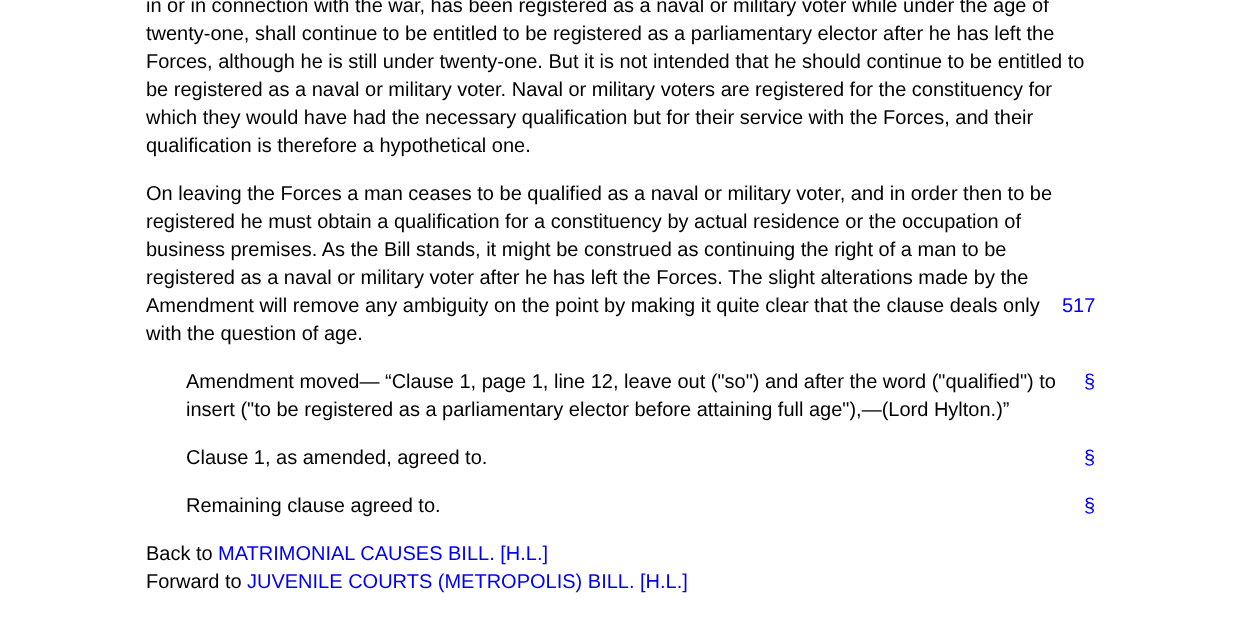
<svg xmlns="http://www.w3.org/2000/svg" width="1241" height="624">
<rect width="100%" height="100%" fill="#fff"/>
<text x="146" y="12" style="font-family:Liberation Sans;font-size:20px;fill:#000">in or in connection with the war, has been registered as a naval or military voter while under the age of</text>
<text x="146" y="40" style="font-family:Liberation Sans;font-size:20px;fill:#000">twenty-one, shall continue to be entitled to be registered as a parliamentary elector after he has left the</text>
<text x="146" y="68" style="font-family:Liberation Sans;font-size:20px;fill:#000">Forces, although he is still under twenty-one. But it is not intended that he should continue to be entitled to</text>
<text x="146" y="96" style="font-family:Liberation Sans;font-size:20px;fill:#000">be registered as a naval or military voter. Naval or military voters are registered for the constituency for</text>
<text x="146" y="124" style="font-family:Liberation Sans;font-size:20px;fill:#000">which they would have had the necessary qualification but for their service with the Forces, and their</text>
<text x="146" y="152" style="font-family:Liberation Sans;font-size:20px;fill:#000">qualification is therefore a hypothetical one.</text>
<text x="146" y="200" style="font-family:Liberation Sans;font-size:20px;fill:#000">On leaving the Forces a man ceases to be qualified as a naval or military voter, and in order then to be</text>
<text x="146" y="228" style="font-family:Liberation Sans;font-size:20px;fill:#000">registered he must obtain a qualification for a constituency by actual residence or the occupation of</text>
<text x="146" y="256" style="font-family:Liberation Sans;font-size:20px;fill:#000">business premises. As the Bill stands, it might be construed as continuing the right of a man to be</text>
<text x="146" y="284" style="font-family:Liberation Sans;font-size:20px;fill:#000">registered as a naval or military voter after he has left the Forces. The slight alterations made by the</text>
<text x="146" y="312" style="font-family:Liberation Sans;font-size:20px;fill:#000">Amendment will remove any ambiguity on the point by making it quite clear that the clause deals only</text>
<text x="1062" y="312" style="font-family:Liberation Sans;font-size:20px;fill:#00e">517</text>
<text x="146" y="340" style="font-family:Liberation Sans;font-size:20px;fill:#000">with the question of age.</text>
<text x="186" y="388" style="font-family:Liberation Sans;font-size:20px;fill:#000">Amendment moved— “Clause 1, page 1, line 12, leave out ("so") and after the word ("qualified") to</text>
<text x="1084" y="388" style="font-family:Liberation Sans;font-size:20px;fill:#00e">§</text>
<text x="186" y="416" style="font-family:Liberation Sans;font-size:20px;fill:#000">insert ("to be registered as a parliamentary elector before attaining full age"),—(Lord Hylton.)”</text>
<text x="186" y="464" style="font-family:Liberation Sans;font-size:20px;fill:#000">Clause 1, as amended, agreed to.</text>
<text x="1084" y="464" style="font-family:Liberation Sans;font-size:20px;fill:#00e">§</text>
<text x="186" y="512" style="font-family:Liberation Sans;font-size:20px;fill:#000">Remaining clause agreed to.</text>
<text x="1084" y="512" style="font-family:Liberation Sans;font-size:20px;fill:#00e">§</text>
<text x="146" y="560" style="font-family:Liberation Sans;font-size:20px;fill:#000">Back to</text>
<text x="218" y="560" style="font-family:Liberation Sans;font-size:20px;fill:#00e">MATRIMONIAL CAUSES BILL. [H.L.]</text>
<text x="146" y="588" style="font-family:Liberation Sans;font-size:20px;fill:#000">Forward to</text>
<text x="247" y="588" style="font-family:Liberation Sans;font-size:20px;fill:#00e">JUVENILE COURTS (METROPOLIS) BILL. [H.L.]</text>
</svg>
